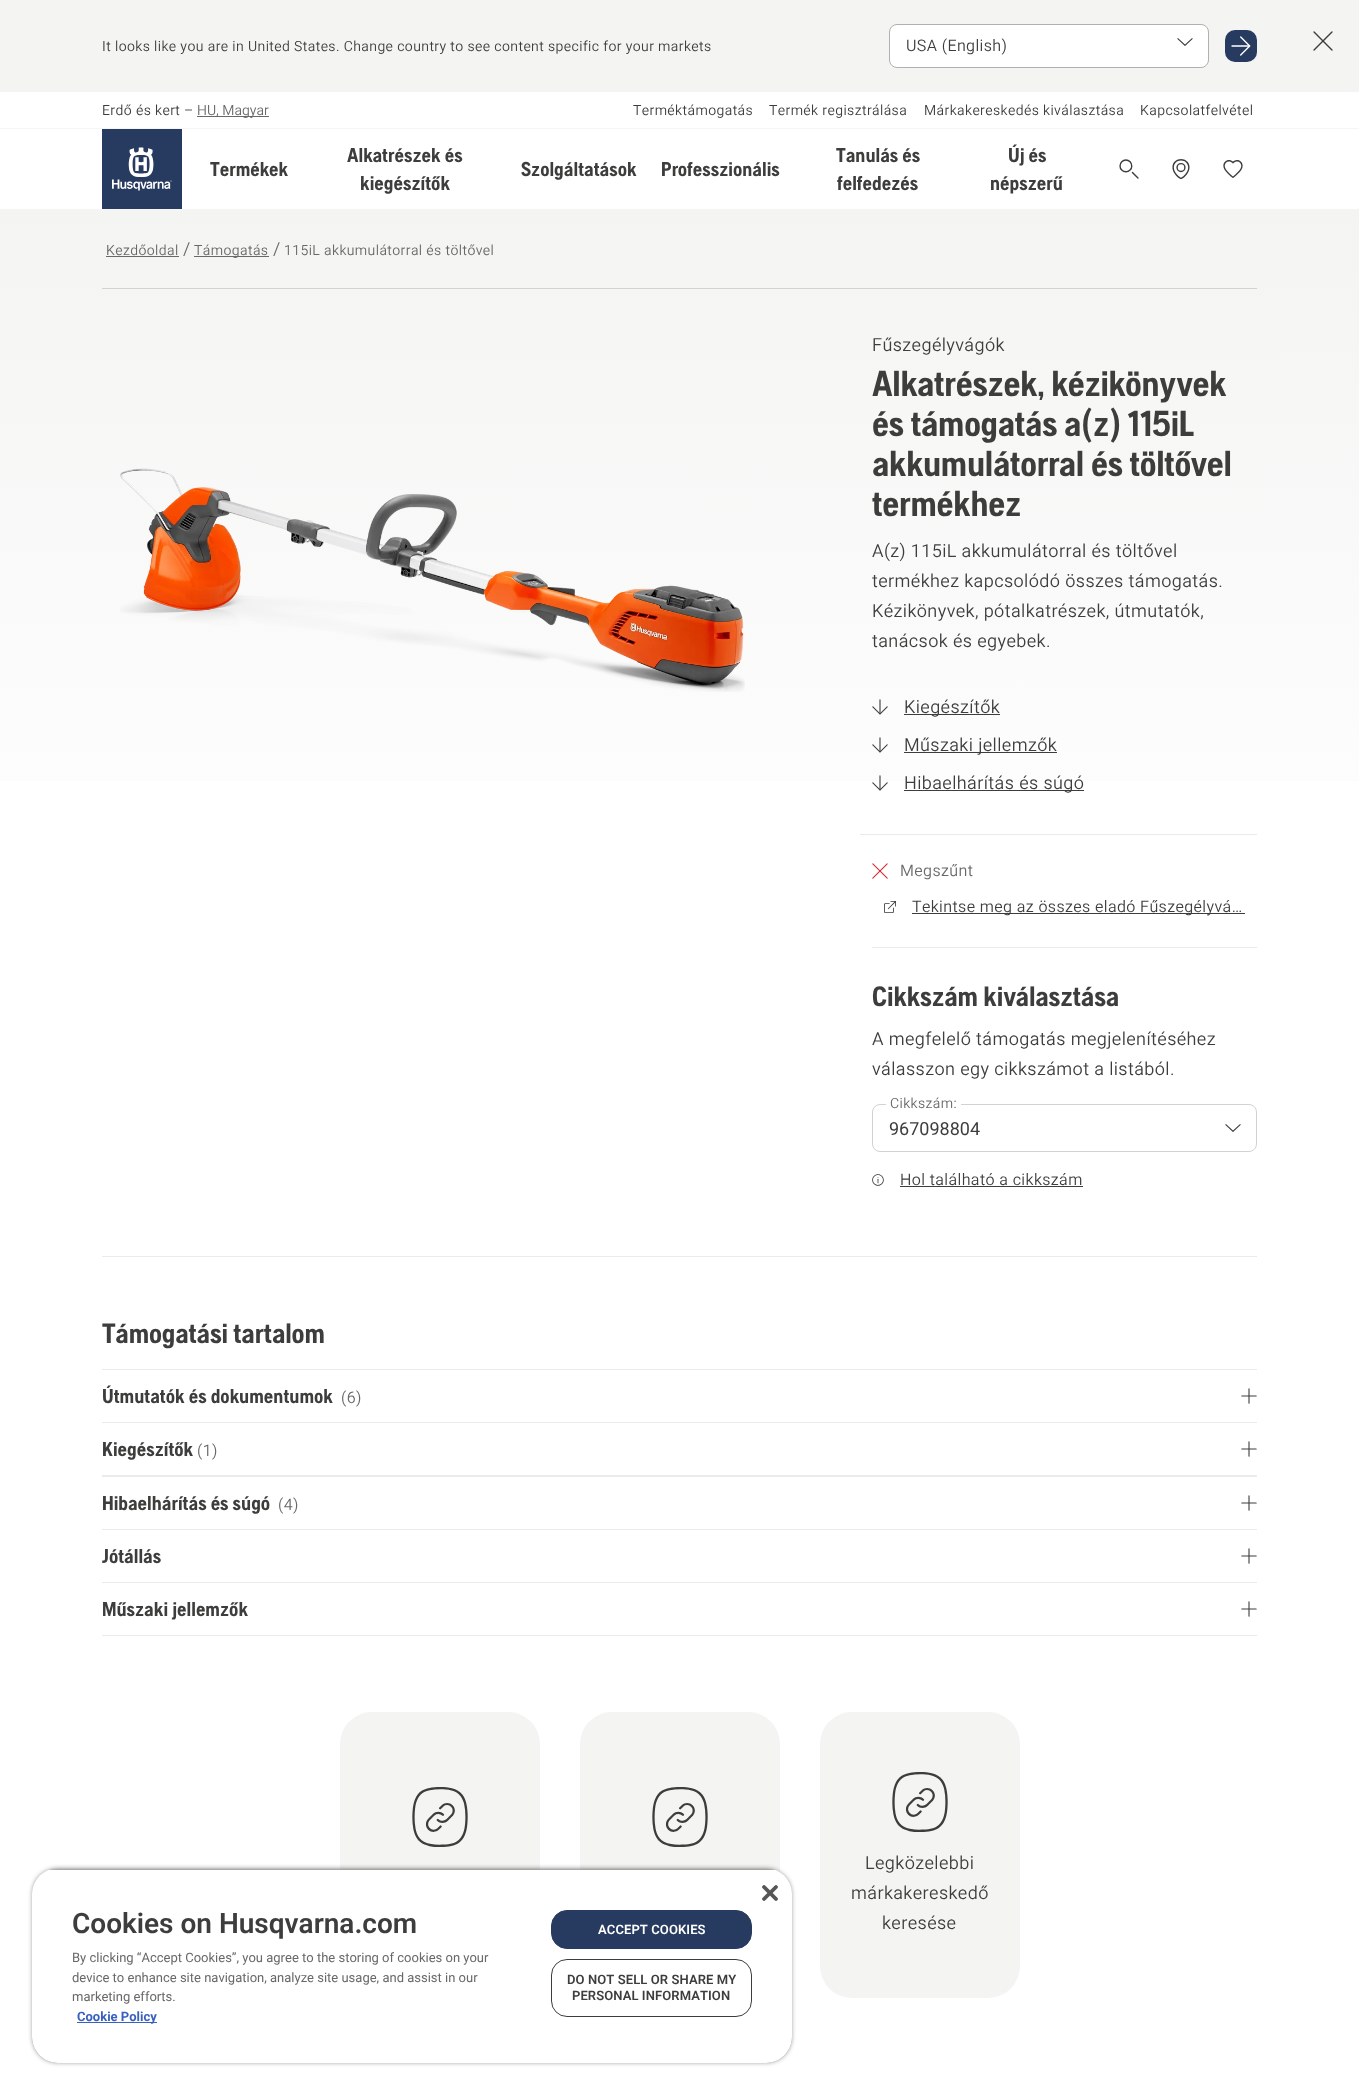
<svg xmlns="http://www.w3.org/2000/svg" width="1359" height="2095">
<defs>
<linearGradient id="g1" gradientUnits="userSpaceOnUse" x1="679" y1="210" x2="680" y2="1652"><stop offset="0" stop-color="#f4f4f3"/><stop offset="0.5" stop-color="#fff"/></linearGradient>
<clipPath id="clip1"><rect x="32" y="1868" width="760" height="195" rx="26"/></clipPath>
<clipPath id="clip2"><rect x="32" y="1868" width="760" height="195" rx="26"/></clipPath>
</defs>
<rect width="100%" height="100%" fill="#fff"/>
<rect width="1359" height="92" fill="#f4f4f3"/>
<text x="102" y="51" style="font-family:Roboto;font-size:14px;font-weight:300;letter-spacing:0.4px;fill:#3d3d3c">It looks like you are in United States. Change country to see content specific for your markets</text>
<rect x="889.5" y="24.5" width="319" height="43" rx="7.5" fill="#fff" stroke="#b0b0af"/>
<text x="906" y="51" style="font-family:Roboto;font-size:16px;font-weight:300;letter-spacing:0.4px;fill:#3d3d3c">USA (English)</text>
<image x="1177" y="38" width="16" height="8" href="media/1.png"/>
<rect x="1225" y="30" width="32" height="32" rx="10" fill="#273a60"/>
<image x="1231" y="36" width="20" height="20" href="media/2.png"/>
<image x="1313" y="31" width="20" height="20" href="media/3.png"/>
<rect y="128" width="1359" height="1" fill="#f5f5f5"/>
<text x="102" y="115" style="font-family:Roboto;font-size:14px;font-weight:300;letter-spacing:0.4px;fill:#3d3d3c">Erdő és kert –</text>
<rect x="197" y="116" width="72" height="1" fill="#686867"/>
<text x="197" y="115" style="font-family:Roboto;font-size:14px;font-weight:300;fill:#686867">HU, Magyar</text>
<text x="633" y="115" style="font-family:Roboto;font-size:14px;font-weight:300;letter-spacing:0.4px;fill:#3d3d3c">Terméktámogatás</text>
<text x="769" y="115" style="font-family:Roboto;font-size:14px;font-weight:300;letter-spacing:0.4px;fill:#3d3d3c">Termék regisztrálása</text>
<text x="924" y="115" style="font-family:Roboto;font-size:14px;font-weight:300;letter-spacing:0.4px;fill:#3d3d3c">Márkakereskedés kiválasztása</text>
<text x="1140" y="115" style="font-family:Roboto;font-size:14px;font-weight:300;letter-spacing:0.4px;fill:#3d3d3c">Kapcsolatfelvétel</text>
<rect x="102" y="129" width="80" height="80" fill="#273a60"/>
<image x="112" y="147" width="60" height="44" href="media/4.png"/>
<text x="210" y="176" style="font-family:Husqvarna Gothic;font-size:20px;font-weight:bold;fill:#3d3d3c">Termékek</text>
<text x="347" y="162" style="font-family:Husqvarna Gothic;font-size:20px;font-weight:bold;fill:#3d3d3c">Alkatrészek és</text>
<text x="360" y="190" style="font-family:Husqvarna Gothic;font-size:20px;font-weight:bold;fill:#3d3d3c">kiegészítők</text>
<text x="521" y="176" style="font-family:Husqvarna Gothic;font-size:20px;font-weight:bold;fill:#3d3d3c">Szolgáltatások</text>
<text x="661" y="176" style="font-family:Husqvarna Gothic;font-size:20px;font-weight:bold;fill:#3d3d3c">Professzionális</text>
<text x="836" y="162" style="font-family:Husqvarna Gothic;font-size:20px;font-weight:bold;fill:#3d3d3c">Tanulás és</text>
<text x="837" y="190" style="font-family:Husqvarna Gothic;font-size:20px;font-weight:bold;fill:#3d3d3c">felfedezés</text>
<text x="1008" y="162" style="font-family:Husqvarna Gothic;font-size:20px;font-weight:bold;fill:#3d3d3c">Új és</text>
<text x="990" y="190" style="font-family:Husqvarna Gothic;font-size:20px;font-weight:bold;fill:#3d3d3c">népszerű</text>
<image x="1119" y="159" width="20" height="20" href="media/5.png"/>
<image x="1172" y="159" width="18" height="20" href="media/6.png"/>
<image x="1223" y="160" width="20" height="18" href="media/7.png"/>
<rect y="209" width="1359" height="1" fill="#f5f5f5"/>
<rect y="210" width="1359" height="571" fill="url(#g1)"/>
<rect x="102" y="288" width="1155" height="1" fill="#d2d2d1"/>
<text x="106" y="255" style="font-family:Roboto;font-size:14px;font-weight:300;letter-spacing:0.4px;fill:#686867">Kezdőoldal</text>
<rect x="106" y="256" width="73" height="1" fill="#686867"/>
<text x="183" y="255" style="font-family:Roboto;font-size:18px;font-weight:300;letter-spacing:0.4px;fill:#686867">/</text>
<rect x="194" y="256" width="75" height="1" fill="#686867"/>
<text x="194" y="255" style="font-family:Roboto;font-size:14px;font-weight:300;letter-spacing:0.4px;fill:#686867">Támogatás</text>
<text x="273" y="255" style="font-family:Roboto;font-size:18px;font-weight:300;letter-spacing:0.4px;fill:#686867">/</text>
<text x="284" y="255" style="font-family:Roboto;font-size:14px;font-weight:300;letter-spacing:0.4px;fill:#686867">115iL akkumulátorral és töltővel</text>
<rect x="102" y="1256" width="1155" height="1" fill="#ebebeb"/>
<image x="120" y="468" width="625" height="224" href="media/8.png"/>
<text x="872" y="351" style="font-family:Roboto;font-size:18px;font-weight:300;letter-spacing:0.4px;fill:#3d3d3c">Fűszegélyvágók</text>
<text x="872" y="396" style="font-family:Husqvarna Gothic;font-size:36px;font-weight:bold;letter-spacing:-0.3px;fill:#3d3d3c">Alkatrészek, kézikönyvek</text>
<text x="872" y="436" style="font-family:Husqvarna Gothic;font-size:36px;font-weight:bold;letter-spacing:-0.3px;fill:#3d3d3c">és támogatás a(z) 115iL</text>
<text x="872" y="476" style="font-family:Husqvarna Gothic;font-size:36px;font-weight:bold;letter-spacing:-0.3px;fill:#3d3d3c">akkumulátorral és töltővel</text>
<text x="872" y="516" style="font-family:Husqvarna Gothic;font-size:36px;font-weight:bold;letter-spacing:-0.3px;fill:#3d3d3c">termékhez</text>
<text x="872" y="557" style="font-family:Roboto;font-size:18px;font-weight:300;letter-spacing:0.4px;fill:#3d3d3c">A(z) 115iL akkumulátorral és töltővel</text>
<text x="872" y="587" style="font-family:Roboto;font-size:18px;font-weight:300;letter-spacing:0.4px;fill:#3d3d3c">termékhez kapcsolódó összes támogatás.</text>
<text x="872" y="617" style="font-family:Roboto;font-size:18px;font-weight:300;letter-spacing:0.4px;fill:#3d3d3c">Kézikönyvek, pótalkatrészek, útmutatók,</text>
<text x="872" y="647" style="font-family:Roboto;font-size:18px;font-weight:300;letter-spacing:0.4px;fill:#3d3d3c">tanácsok és egyebek.</text>
<rect x="860" y="834" width="397" height="1" fill="#eaeae9"/>
<image x="872" y="699" width="16" height="16" href="media/9.png"/>
<rect x="904" y="714" width="96" height="1" fill="#3d3d3c"/>
<text x="904" y="713" style="font-family:Roboto;font-size:18px;font-weight:300;letter-spacing:0.4px;fill:#3d3d3c">Kiegészítők</text>
<image x="872" y="737" width="16" height="16" href="media/10.png"/>
<rect x="904" y="752" width="153" height="1" fill="#3d3d3c"/>
<text x="904" y="751" style="font-family:Roboto;font-size:18px;font-weight:300;letter-spacing:0.4px;fill:#3d3d3c">Műszaki jellemzők</text>
<image x="872" y="775" width="16" height="16" href="media/11.png"/>
<rect x="904" y="790" width="180" height="1" fill="#3d3d3c"/>
<text x="904" y="789" style="font-family:Roboto;font-size:18px;font-weight:300;letter-spacing:0.4px;fill:#3d3d3c">Hibaelhárítás és súgó</text>
<rect x="872" y="947" width="385" height="1" fill="#ebebeb"/>
<image x="872" y="863" width="16" height="16" href="media/12.png"/>
<text x="900" y="876" style="font-family:Roboto;font-size:16px;font-weight:300;letter-spacing:0.4px;fill:#686867">Megszűnt</text>
<image x="884" y="901" width="12" height="12" href="media/13.png"/>
<rect x="912" y="913" width="333" height="1" fill="#3d3d3c"/>
<text x="912" y="912" style="font-family:Roboto;font-size:16px;font-weight:300;letter-spacing:0.4px;fill:#3d3d3c">Tekintse meg az összes eladó Fűszegélyvá…</text>
<text x="872" y="1006" style="font-family:Husqvarna Gothic;font-size:28px;font-weight:bold;letter-spacing:-0.2px;fill:#3d3d3c">Cikkszám kiválasztása</text>
<text x="872" y="1045" style="font-family:Roboto;font-size:18px;font-weight:300;letter-spacing:0.4px;fill:#3d3d3c">A megfelelő támogatás megjelenítéséhez</text>
<text x="872" y="1075" style="font-family:Roboto;font-size:18px;font-weight:300;letter-spacing:0.4px;fill:#3d3d3c">válasszon egy cikkszámot a listából.</text>
<rect x="872.5" y="1104.5" width="384" height="47" rx="7.5" fill="none" stroke="#d2d2d1"/>
<rect x="886" y="1091" width="75" height="24" rx="3" fill="#fff"/>
<text x="890" y="1108" style="font-family:Roboto;font-size:14px;font-weight:300;letter-spacing:0.4px;fill:#686867">Cikkszám:</text>
<text x="889" y="1135" style="font-family:Roboto;font-size:18px;fill:#3d3d3c">967098804</text>
<image x="1225" y="1124" width="16" height="8" href="media/1.png"/>
<image x="872" y="1174" width="12" height="12" href="media/14.png"/>
<text x="900" y="1185" style="font-family:Roboto;font-size:16px;font-weight:300;letter-spacing:0.4px;fill:#3d3d3c">Hol található a cikkszám</text>
<rect x="900" y="1186" width="183" height="1" fill="#3d3d3c"/>
<text x="102" y="1343" style="font-family:Husqvarna Gothic;font-size:28px;font-weight:bold;letter-spacing:-0.2px;fill:#3d3d3c">Támogatási tartalom</text>
<rect x="102" y="1369" width="1155" height="1" fill="#ebebeb"/>
<rect x="102" y="1422" width="1155" height="1" fill="#ebebeb"/>
<text x="102" y="1403" style="font-family:Husqvarna Gothic;font-size:20px;font-weight:bold;fill:#3d3d3c">Útmutatók és dokumentumok</text>
<text x="341" y="1403" style="font-family:Roboto;font-size:16px;font-weight:300;letter-spacing:0.4px;fill:#686867">(6)</text>
<image x="1241" y="1388" width="16" height="16" href="media/15.png"/>
<rect x="102" y="1475" width="1155" height="2" fill="#ebebeb"/>
<text x="102" y="1456" style="font-family:Husqvarna Gothic;font-size:20px;font-weight:bold;fill:#3d3d3c">Kiegészítők</text>
<text x="197" y="1456" style="font-family:Roboto;font-size:16px;font-weight:300;letter-spacing:0.4px;fill:#686867">(1)</text>
<image x="1241" y="1441" width="16" height="16" href="media/15.png"/>
<rect x="102" y="1529" width="1155" height="1" fill="#ebebeb"/>
<text x="102" y="1510" style="font-family:Husqvarna Gothic;font-size:20px;font-weight:bold;fill:#3d3d3c">Hibaelhárítás és súgó</text>
<text x="278" y="1510" style="font-family:Roboto;font-size:16px;font-weight:300;letter-spacing:0.4px;fill:#686867">(4)</text>
<image x="1241" y="1495" width="16" height="16" href="media/15.png"/>
<rect x="102" y="1582" width="1155" height="1" fill="#ebebeb"/>
<text x="102" y="1563" style="font-family:Husqvarna Gothic;font-size:20px;font-weight:bold;fill:#3d3d3c">Jótállás</text>
<image x="1241" y="1548" width="16" height="16" href="media/15.png"/>
<rect x="102" y="1635" width="1155" height="1" fill="#ebebeb"/>
<text x="102" y="1616" style="font-family:Husqvarna Gothic;font-size:20px;font-weight:bold;fill:#3d3d3c">Műszaki jellemzők</text>
<image x="1241" y="1601" width="16" height="16" href="media/15.png"/>
<rect x="340" y="1712" width="200" height="286" rx="32" fill="#f4f4f3"/>
<image x="412" y="1787" width="56" height="60" href="media/16.png"/>
<image x="425" y="1803" width="30" height="29" href="media/17.png"/>
<rect x="580" y="1712" width="200" height="286" rx="32" fill="#f4f4f3"/>
<image x="652" y="1787" width="56" height="60" href="media/16.png"/>
<image x="665" y="1803" width="30" height="29" href="media/17.png"/>
<rect x="820" y="1712" width="200" height="286" rx="32" fill="#f4f4f3"/>
<image x="892" y="1772" width="56" height="60" href="media/18.png"/>
<image x="905" y="1788" width="30" height="29" href="media/17.png"/>
<text x="865" y="1869" style="font-family:Roboto;font-size:18px;font-weight:300;letter-spacing:0.4px;fill:#3d3d3c">Legközelebbi</text>
<text x="851" y="1899" style="font-family:Roboto;font-size:18px;font-weight:300;letter-spacing:0.4px;fill:#3d3d3c">márkakereskedő</text>
<text x="882" y="1929" style="font-family:Roboto;font-size:18px;font-weight:300;letter-spacing:0.4px;fill:#3d3d3c">keresése</text>
<rect x="32" y="1868" width="760" height="195" rx="26" fill="#00000059" filter="blur(2px)"/>
<g clip-path="url(#clip1)">
<rect x="32" y="1870" width="760" height="193" fill="#00000033" filter="blur(2px)"/>
</g>
<g clip-path="url(#clip2)">
<path d="M32 1870h760v167c0 14.5-11.5 26-26 26h-708c-14.5 0-26-11.5-26-26z" fill="#fff"/>
</g>
<image x="762" y="1885" width="16" height="16" href="media/19.png"/>
<text x="72" y="1933" style="font-family:Roboto;font-size:28px;font-weight:600;fill:#3d3d3c">Cookies on Husqvarna.com</text>
<text x="72" y="1962" style="font-family:Roboto;font-size:13px;fill:#686867">By clicking “Accept Cookies”, you agree to the storing of cookies on your</text>
<text x="72" y="1982" style="font-family:Roboto;font-size:13px;fill:#686867">device to enhance site navigation, analyze site usage, and assist in our</text>
<text x="72" y="2001" style="font-family:Roboto;font-size:13px;fill:#686867">marketing efforts.</text>
<rect x="77" y="2022" width="80" height="1" fill="#3860be"/>
<text x="77" y="2021" style="font-family:Roboto;font-size:13px;font-weight:bold;fill:#3860be">Cookie Policy</text>
<rect x="551.5" y="1910.5" width="200" height="38" rx="15.5" fill="#273a60" stroke="#273a60"/>
<text x="598" y="1934" style="font-family:Roboto;font-size:13px;font-weight:600;letter-spacing:0.1px;fill:#fff">ACCEPT COOKIES</text>
<rect x="551.5" y="1959.5" width="200" height="57" rx="15.5" fill="none" stroke="#3d3d3c"/>
<text x="567" y="1984" style="font-family:Roboto;font-size:13px;font-weight:600;letter-spacing:0.1px;fill:#3d3d3c">DO NOT SELL OR SHARE MY</text>
<text x="572" y="2000" style="font-family:Roboto;font-size:13px;font-weight:600;letter-spacing:0.1px;fill:#3d3d3c">PERSONAL INFORMATION</text>
</svg>
